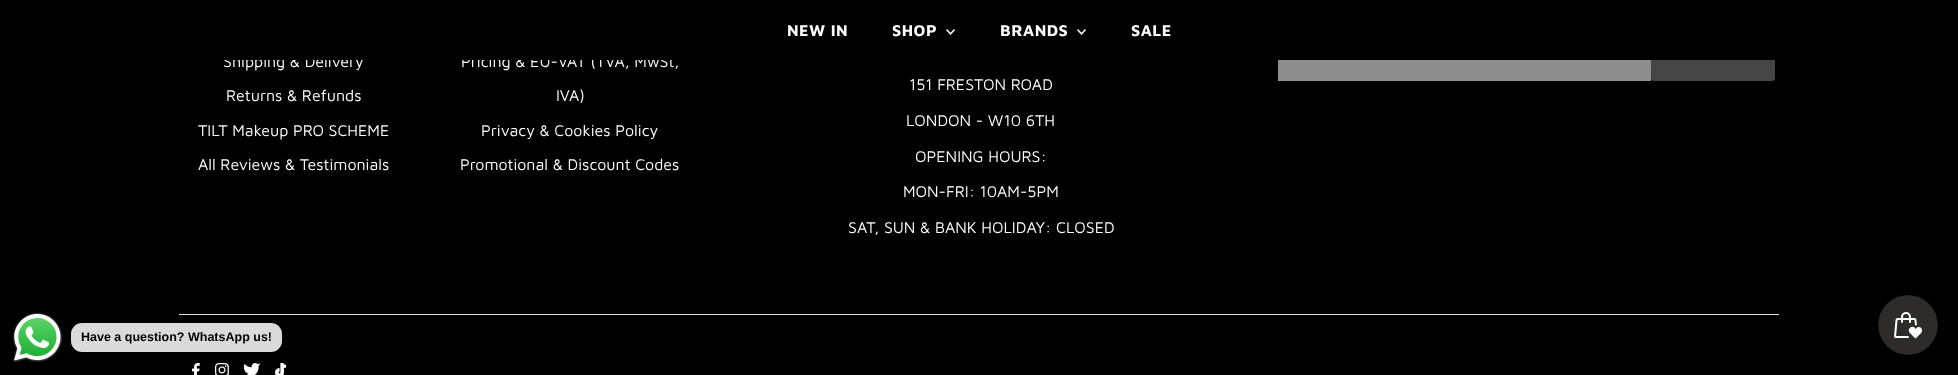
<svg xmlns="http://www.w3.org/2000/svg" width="1958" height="375">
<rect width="100%" height="100%" fill="#000"/>
<text x="223" y="67" style="font-family:Maven Pro;font-size:16px;fill:#fff">Shipping &amp; Delivery</text>
<text x="461" y="67" style="font-family:Maven Pro;font-size:16px;fill:#fff">Pricing &amp; EU-VAT (TVA, MwSt,</text>
<rect x="1651" y="31" width="124" height="50" rx="3" fill="#454545"/>
<rect x="224" y="31" width="1551" height="29" fill="#000"/>
<text x="787" y="36" style="font-family:Maven Pro;font-size:16px;font-weight:bold;letter-spacing:0.5px;fill:#fff">NEW IN</text>
<text x="892" y="36" style="font-family:Maven Pro;font-size:16px;font-weight:bold;letter-spacing:0.5px;fill:#fff">SHOP</text>
<image x="946" y="29" width="9" height="6" href="media/1.png"/>
<text x="1000" y="36" style="font-family:Maven Pro;font-size:16px;font-weight:bold;letter-spacing:0.5px;fill:#fff">BRANDS</text>
<image x="1077" y="29" width="9" height="6" href="media/1.png"/>
<text x="1131" y="36" style="font-family:Maven Pro;font-size:16px;font-weight:bold;letter-spacing:0.5px;fill:#fff">SALE</text>
<text x="226" y="101" style="font-family:Maven Pro;font-size:16px;fill:#fff">Returns &amp; Refunds</text>
<text x="198" y="136" style="font-family:Maven Pro;font-size:16px;fill:#fff">TILT Makeup PRO SCHEME</text>
<text x="198" y="170" style="font-family:Maven Pro;font-size:16px;fill:#fff">All Reviews &amp; Testimonials</text>
<text x="556" y="101" style="font-family:Maven Pro;font-size:16px;fill:#fff">IVA)</text>
<text x="481" y="136" style="font-family:Maven Pro;font-size:16px;fill:#fff">Privacy &amp; Cookies Policy</text>
<text x="460" y="170" style="font-family:Maven Pro;font-size:16px;fill:#fff">Promotional &amp; Discount Codes</text>
<text x="909" y="90" style="font-family:Maven Pro;font-size:16px;fill:#fff">151 FRESTON ROAD</text>
<text x="906" y="126" style="font-family:Maven Pro;font-size:16px;fill:#fff">LONDON - W10 6TH</text>
<text x="915" y="162" style="font-family:Maven Pro;font-size:16px;fill:#fff">OPENING HOURS:</text>
<text x="903" y="197" style="font-family:Maven Pro;font-size:16px;fill:#fff">MON-FRI: 10AM-5PM</text>
<text x="848" y="233" style="font-family:Maven Pro;font-size:16px;fill:#fff">SAT, SUN &amp; BANK HOLIDAY: CLOSED</text>
<rect x="1278" y="60" width="373" height="21" fill="#8e8e8e"/>
<rect x="179" y="314" width="1600" height="1" fill="#ddd"/>
<image x="192" y="363" width="8" height="12" href="media/2.png"/>
<image x="215" y="363" width="14" height="12" href="media/3.png"/>
<image x="243" y="363" width="17" height="12" href="media/4.png"/>
<image x="275" y="363" width="11" height="12" href="media/5.png"/>
<image x="12" y="312" width="51" height="50" href="media/6.png"/>
<rect x="71" y="323" width="211" height="29" rx="11" fill="#dadada"/>
<text x="81" y="341" style="font-family:Liberation Sans;font-size:12.5px;font-weight:bold;fill:#000">Have a question? WhatsApp us!</text>
<image x="1878" y="295" width="60" height="60" href="media/7.png"/>
</svg>
